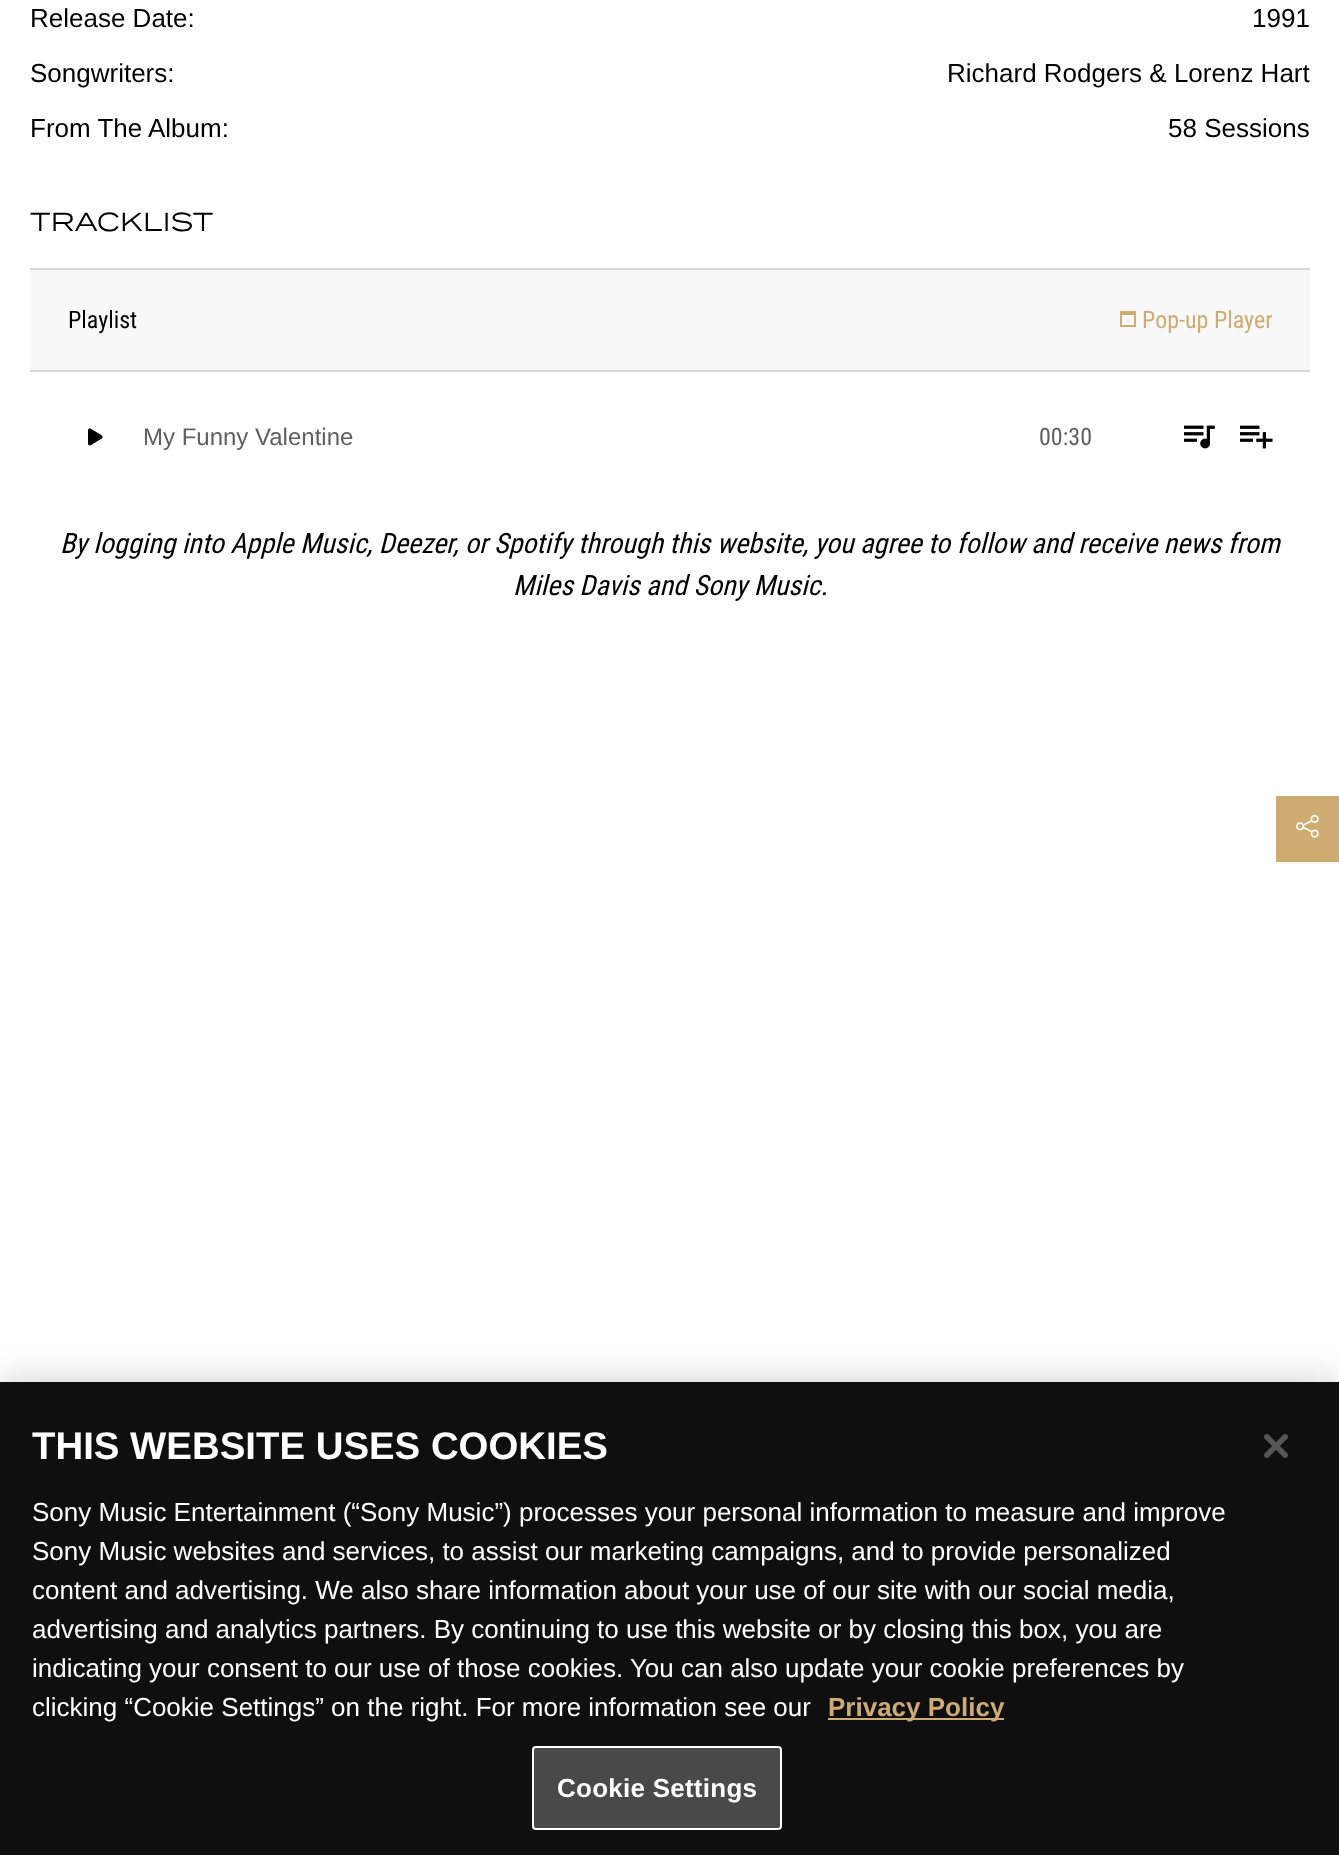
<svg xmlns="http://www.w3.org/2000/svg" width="1339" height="1855">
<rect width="100%" height="100%" fill="#fff"/>
<text x="30" y="27" style="font-family:Liberation Sans;font-size:26px;fill:#000">Release Date:</text>
<text x="1252" y="27" style="font-family:Liberation Sans;font-size:26px;fill:#000">1991</text>
<text x="30" y="82" style="font-family:Liberation Sans;font-size:26px;fill:#000">Songwriters:</text>
<text x="947" y="82" style="font-family:Liberation Sans;font-size:26px;fill:#000">Richard Rodgers &amp; Lorenz Hart</text>
<text x="30" y="137" style="font-family:Liberation Sans;font-size:26px;fill:#000">From The Album:</text>
<text x="1168" y="137" style="font-family:Liberation Sans;font-size:26px;fill:#000">58 Sessions</text>
<text x="30" y="231" style="font-family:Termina;font-size:26px;fill:#000">TRACKLIST</text>
<rect x="30" y="270" width="1280" height="100" fill="#f8f8f8"/>
<rect x="30" y="268" width="1280" height="2" fill="#d7d7d9"/>
<text x="68" y="328" style="font-family:Roboto Condensed;font-size:24px;fill:#000">Playlist</text>
<image x="1120" y="311" width="16" height="16" href="media/1.png"/>
<text x="1142" y="328" style="font-family:Roboto Condensed;font-size:24px;fill:#ceac71">Pop-up Player</text>
<rect x="30" y="370" width="1280" height="2" fill="#d7d7d9"/>
<image x="88" y="428" width="15" height="18" href="media/2.png"/>
<text x="143" y="445" style="font-family:Liberation Sans;font-size:24px;fill:#5f5f5f">My Funny Valentine</text>
<text x="1039" y="445" style="font-family:Roboto Condensed;font-size:24px;fill:#5f5f5f">00:30</text>
<image x="1184" y="425" width="31" height="24" href="media/3.png"/>
<image x="1240" y="425" width="33" height="24" href="media/4.png"/>
<text x="60" y="553" style="font-family:Roboto Condensed;font-size:28px;font-style:italic;fill:#000">By logging into Apple Music, Deezer, or Spotify through this website, you agree to follow and receive news from</text>
<text x="513" y="595" style="font-family:Roboto Condensed;font-size:28px;font-style:italic;fill:#000">Miles Davis and Sony Music.</text>
<rect x="1276" y="796" width="63" height="66" fill="#ceac71"/>
<image x="1296" y="814" width="23" height="24" href="media/5.png"/>
<rect y="1382" width="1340" height="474" fill="#00000033" filter="blur(18px)"/>
<rect y="1382" width="1339" height="473" fill="#0f0f0f"/>
<text x="32" y="1459" style="font-family:Liberation Sans;font-size:38.4px;font-weight:bold;fill:#fff">THIS WEBSITE USES COOKIES</text>
<text x="32" y="1521" style="font-family:Liberation Sans;font-size:26px;fill:#fff">Sony Music Entertainment (“Sony Music”) processes your personal information to measure and improve</text>
<text x="32" y="1560" style="font-family:Liberation Sans;font-size:26px;fill:#fff">Sony Music websites and services, to assist our marketing campaigns, and to provide personalized</text>
<text x="32" y="1599" style="font-family:Liberation Sans;font-size:26px;fill:#fff">content and advertising. We also share information about your use of our site with our social media,</text>
<text x="32" y="1638" style="font-family:Liberation Sans;font-size:26px;fill:#fff">advertising and analytics partners. By continuing to use this website or by closing this box, you are</text>
<text x="32" y="1677" style="font-family:Liberation Sans;font-size:26px;fill:#fff">indicating your consent to our use of those cookies. You can also update your cookie preferences by</text>
<text x="32" y="1716" style="font-family:Liberation Sans;font-size:26px;fill:#fff">clicking “Cookie Settings” on the right. For more information see our</text>
<rect x="828" y="1718" width="176" height="2" fill="#ceab71"/>
<text x="828" y="1716" style="font-family:Liberation Sans;font-size:26px;font-weight:bold;fill:#ceac71">Privacy Policy</text>
<rect x="533" y="1747" width="248" height="82" rx="3" fill="#494949" stroke="#fff" stroke-width="2"/>
<text x="557" y="1797" style="font-family:Liberation Sans;font-size:26px;font-weight:bold;letter-spacing:0.25px;fill:#fff">Cookie Settings</text>
<image x="1264" y="1434" width="24" height="24" href="media/6.png"/>
</svg>
